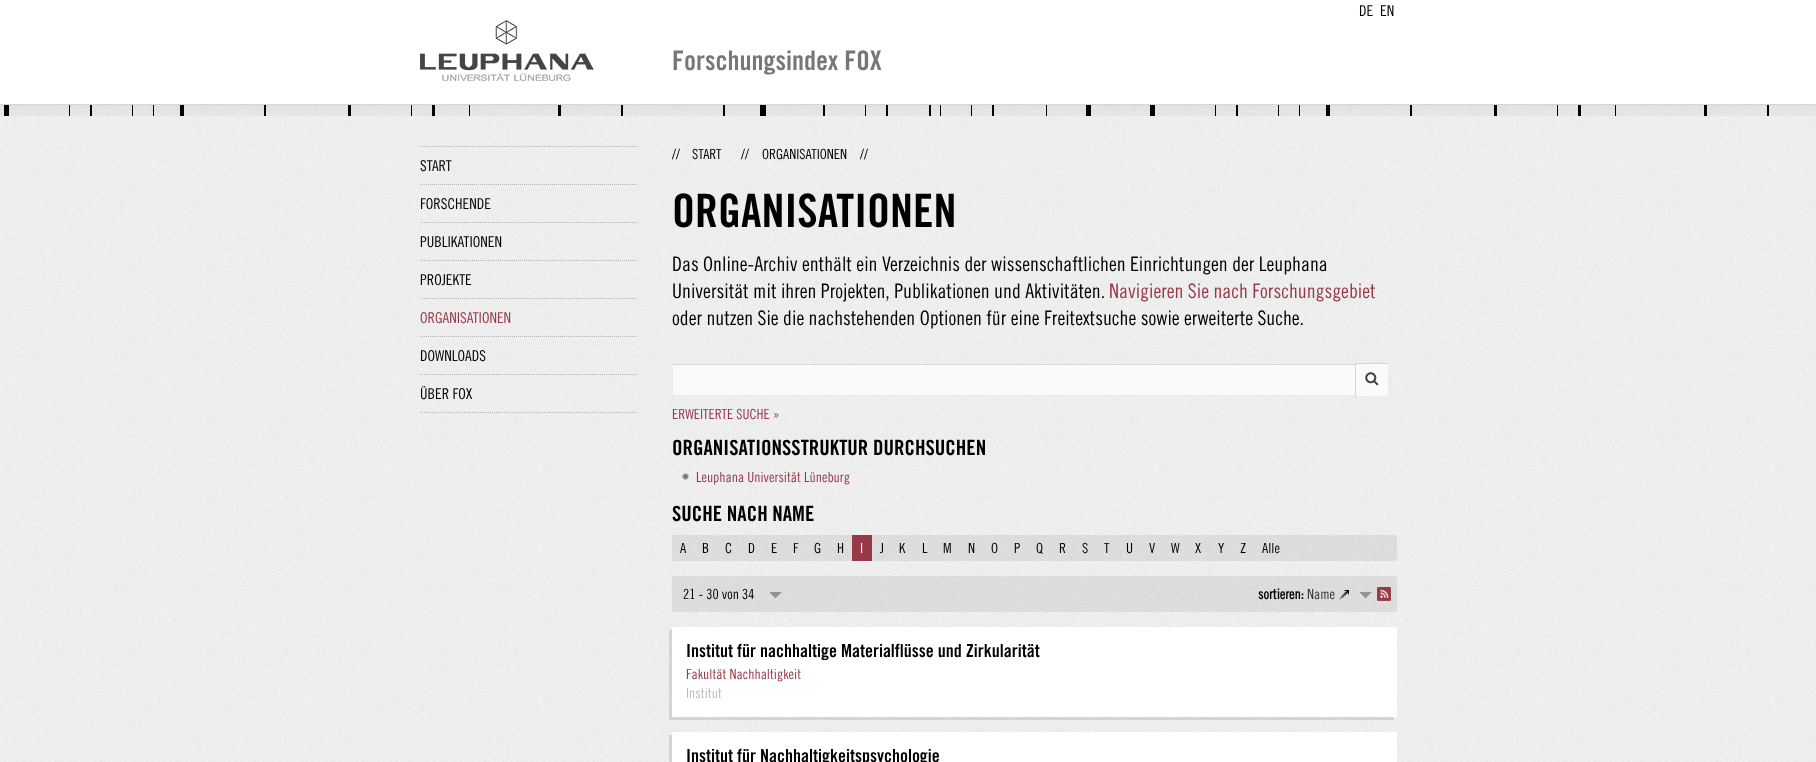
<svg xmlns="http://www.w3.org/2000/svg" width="1816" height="762">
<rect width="100%" height="100%" fill="#fff"/>
<image x="0" y="116" width="1816" height="646" href="media/1.png"/>
<rect y="104" width="1816" height="1" fill="#d6d6d6"/>
<text x="1359" y="16" style="font-family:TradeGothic;font-size:15px;fill:#000">DE</text>
<text x="1380" y="16" style="font-family:TradeGothic;font-size:15px;fill:#000">EN</text>
<image x="420" y="20" width="174" height="61" href="media/2.png"/>
<text x="672" y="70" style="font-family:'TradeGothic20';font-size:27px;font-weight:bold;fill:#777">Forschungsindex FOX</text>
<image x="0" y="105" width="1816" height="11" href="media/3.png"/>
<path d="M420 412.5h217" fill="none" stroke="#b5b5b5" stroke-dasharray="1 1"/>
<path d="M420 146.5h217" fill="none" stroke="#b5b5b5" stroke-dasharray="1 1"/>
<text x="420" y="171" style="font-family:TradeGothic;font-size:15px;fill:#000">START</text>
<path d="M420 184.5h217" fill="none" stroke="#b5b5b5" stroke-dasharray="1 1"/>
<text x="420" y="209" style="font-family:TradeGothic;font-size:15px;fill:#000">FORSCHENDE</text>
<path d="M420 222.5h217" fill="none" stroke="#b5b5b5" stroke-dasharray="1 1"/>
<text x="420" y="247" style="font-family:TradeGothic;font-size:15px;fill:#000">PUBLIKATIONEN</text>
<path d="M420 260.5h217" fill="none" stroke="#b5b5b5" stroke-dasharray="1 1"/>
<text x="420" y="285" style="font-family:TradeGothic;font-size:15px;fill:#000">PROJEKTE</text>
<path d="M420 298.5h217" fill="none" stroke="#b5b5b5" stroke-dasharray="1 1"/>
<text x="420" y="323" style="font-family:TradeGothic;font-size:15px;fill:#973948">ORGANISATIONEN</text>
<path d="M420 336.5h217" fill="none" stroke="#b5b5b5" stroke-dasharray="1 1"/>
<text x="420" y="361" style="font-family:TradeGothic;font-size:15px;fill:#000">DOWNLOADS</text>
<path d="M420 374.5h217" fill="none" stroke="#b5b5b5" stroke-dasharray="1 1"/>
<text x="420" y="399" style="font-family:TradeGothic;font-size:15px;fill:#000">ÜBER FOX</text>
<text x="672" y="159" style="font-family:TradeGothic;font-size:14px;fill:#000">//</text>
<text x="692" y="159" style="font-family:TradeGothic;font-size:14px;fill:#000">START</text>
<text x="741" y="159" style="font-family:TradeGothic;font-size:14px;fill:#000">//</text>
<text x="762" y="159" style="font-family:TradeGothic;font-size:14px;fill:#000">ORGANISATIONEN</text>
<text x="860" y="159" style="font-family:TradeGothic;font-size:14px;fill:#000">//</text>
<text x="672" y="227" style="font-family:'TradeGothic20';font-size:46px;font-weight:bold;fill:#000">ORGANISATIONEN</text>
<text x="672" y="271" style="font-family:TradeGothic;font-size:20px;fill:#000">Das Online-Archiv enthält ein Verzeichnis der wissenschaftlichen Einrichtungen der Leuphana</text>
<text x="672" y="298" style="font-family:TradeGothic;font-size:20px;fill:#000">Universität mit ihren Projekten, Publikationen und Aktivitäten.</text>
<text x="1109" y="298" style="font-family:TradeGothic;font-size:20px;fill:#973948">Navigieren Sie nach Forschungsgebiet</text>
<text x="672" y="325" style="font-family:TradeGothic;font-size:20px;fill:#000">oder nutzen Sie die nachstehenden Optionen für eine Freitextsuche sowie erweiterte Suche.</text>
<rect x="673" y="365" width="682" height="30" fill="#fafafa"/>
<rect x="672" y="364" width="687" height="1" fill="#d5d5d5"/>
<rect x="672" y="395" width="687" height="1" fill="#ebebeb"/>
<rect x="672" y="364" width="1" height="32" fill="#ebebeb"/>
<rect x="1356" y="364" width="32" height="32" fill="#fafafa"/>
<rect x="1355" y="363" width="34" height="1" fill="#d5d5d5"/>
<rect x="1388" y="363" width="1" height="34" fill="#ebebeb"/>
<rect x="1355" y="396" width="34" height="1" fill="#ebebeb"/>
<rect x="1355" y="363" width="1" height="34" fill="#d5d5d5"/>
<image x="1365" y="372" width="14" height="14" href="media/4.png"/>
<text x="672" y="419" style="font-family:TradeGothic;font-size:14px;fill:#973948">ERWEITERTE SUCHE »</text>
<text x="672" y="455" style="font-family:'TradeGothic20';font-size:21px;font-weight:bold;fill:#000">ORGANISATIONSSTRUKTUR DURCHSUCHEN</text>
<image x="682" y="473" width="7" height="7" href="media/5.png"/>
<text x="696" y="482" style="font-family:TradeGothic;font-size:14px;fill:#973948">Leuphana Universität Lüneburg</text>
<text x="672" y="521" style="font-family:'TradeGothic20';font-size:21px;font-weight:bold;fill:#000">SUCHE NACH NAME</text>
<rect x="672" y="535" width="725" height="26" fill="#00000012"/>
<text x="680" y="553" style="font-family:TradeGothic;font-size:14px;fill:#000">A</text>
<text x="702" y="553" style="font-family:TradeGothic;font-size:14px;fill:#000">B</text>
<text x="725" y="553" style="font-family:TradeGothic;font-size:14px;fill:#000">C</text>
<text x="748" y="553" style="font-family:TradeGothic;font-size:14px;fill:#000">D</text>
<text x="771" y="553" style="font-family:TradeGothic;font-size:14px;fill:#000">E</text>
<text x="793" y="553" style="font-family:TradeGothic;font-size:14px;fill:#000">F</text>
<text x="814" y="553" style="font-family:TradeGothic;font-size:14px;fill:#000">G</text>
<text x="837" y="553" style="font-family:TradeGothic;font-size:14px;fill:#000">H</text>
<rect x="852" y="535" width="20" height="26" fill="#973948"/>
<text x="860" y="553" style="font-family:TradeGothic;font-size:14px;fill:#fff">I</text>
<text x="880" y="553" style="font-family:TradeGothic;font-size:14px;fill:#000">J</text>
<text x="899" y="553" style="font-family:TradeGothic;font-size:14px;fill:#000">K</text>
<text x="922" y="553" style="font-family:TradeGothic;font-size:14px;fill:#000">L</text>
<text x="943" y="553" style="font-family:TradeGothic;font-size:14px;fill:#000">M</text>
<text x="968" y="553" style="font-family:TradeGothic;font-size:14px;fill:#000">N</text>
<text x="991" y="553" style="font-family:TradeGothic;font-size:14px;fill:#000">O</text>
<text x="1014" y="553" style="font-family:TradeGothic;font-size:14px;fill:#000">P</text>
<text x="1036" y="553" style="font-family:TradeGothic;font-size:14px;fill:#000">Q</text>
<text x="1059" y="553" style="font-family:TradeGothic;font-size:14px;fill:#000">R</text>
<text x="1082" y="553" style="font-family:TradeGothic;font-size:14px;fill:#000">S</text>
<text x="1104" y="553" style="font-family:TradeGothic;font-size:14px;fill:#000">T</text>
<text x="1126" y="553" style="font-family:TradeGothic;font-size:14px;fill:#000">U</text>
<text x="1149" y="553" style="font-family:TradeGothic;font-size:14px;fill:#000">V</text>
<text x="1171" y="553" style="font-family:TradeGothic;font-size:14px;fill:#000">W</text>
<text x="1195" y="553" style="font-family:TradeGothic;font-size:14px;fill:#000">X</text>
<text x="1218" y="553" style="font-family:TradeGothic;font-size:14px;fill:#000">Y</text>
<text x="1240" y="553" style="font-family:TradeGothic;font-size:14px;fill:#000">Z</text>
<text x="1262" y="553" style="font-family:TradeGothic;font-size:14px;fill:#000">Alle</text>
<rect x="672" y="576" width="725" height="36" fill="#00000012"/>
<image x="769" y="592" width="13" height="7" href="media/6.png"/>
<text x="683" y="599" style="font-family:TradeGothic;font-size:14px;fill:#000">21 - 30 von 34</text>
<image x="1359" y="592" width="13" height="7" href="media/7.png"/>
<text x="1258" y="599" style="font-family:TradeGothic;font-size:14px;font-weight:bold;fill:#000">sortieren:</text>
<text x="1307" y="599" style="font-family:TradeGothic;font-size:14px;fill:#333">Name</text>
<image x="1339" y="590" width="10" height="10" href="media/8.png"/>
<image x="1377" y="587" width="14" height="14" href="media/9.png"/>
<path d="M669 630v90h725v-3h-722v-87z" fill="#0000001a"/>
<rect x="672" y="627" width="725" height="90" fill="#fff"/>
<text x="686" y="657" style="font-family:'TradeGothic20';font-size:18px;font-weight:bold;fill:#000">Institut für nachhaltige Materialflüsse und Zirkularität</text>
<text x="686" y="679" style="font-family:TradeGothic;font-size:14px;fill:#973948">Fakultät Nachhaltigkeit</text>
<text x="686" y="698" style="font-family:TradeGothic;font-size:14px;fill:#bbb">Institut</text>
<path d="M669 735v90h725v-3h-722v-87z" fill="#0000001a"/>
<rect x="672" y="732" width="725" height="30" fill="#fff"/>
<text x="686" y="762" style="font-family:'TradeGothic20';font-size:18px;font-weight:bold;fill:#000">Institut für Nachhaltigkeitspsychologie</text>
</svg>
